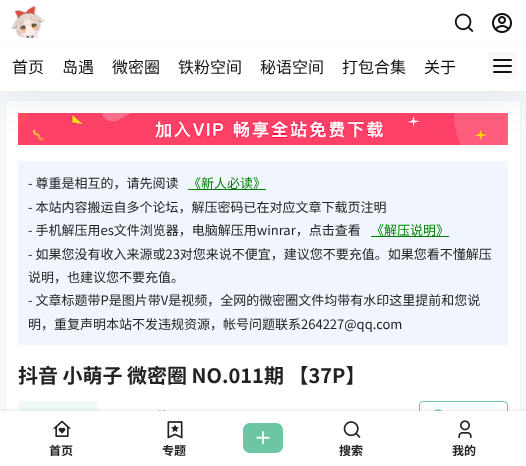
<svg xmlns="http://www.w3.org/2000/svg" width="526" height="466">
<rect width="100%" height="100%" fill="#f7f9fa"/>
<rect x="6" y="101" width="514" height="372" rx="4" fill="#627c991a" filter="blur(1px)"/>
<rect x="6" y="101" width="514" height="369" rx="4" fill="#fff"/>
<image x="18" y="113" width="490" height="32" href="media/4.png"/>
<rect y="5" width="526" height="91" fill="#113a5d1a" filter="blur(20px)"/>
<rect width="526" height="91" fill="#fff"/>
<rect y="43" width="526" height="1" fill="#f8f8f8"/>
<image x="12" y="6" width="32" height="32" href="media/1.png"/>
<text x="12" y="73" style="font-family:Noto Sans CJK SC;font-size:16px;fill:#121212">首页</text>
<text x="62" y="73" style="font-family:Noto Sans CJK SC;font-size:16px;fill:#121212">岛遇</text>
<text x="112" y="73" style="font-family:Noto Sans CJK SC;font-size:16px;fill:#121212">微密圈</text>
<text x="178" y="73" style="font-family:Noto Sans CJK SC;font-size:16px;fill:#121212">铁粉空间</text>
<text x="260" y="73" style="font-family:Noto Sans CJK SC;font-size:16px;fill:#121212">秘语空间</text>
<text x="342" y="73" style="font-family:Noto Sans CJK SC;font-size:16px;fill:#121212">打包合集</text>
<text x="424" y="73" style="font-family:Noto Sans CJK SC;font-size:16px;fill:#121212">关于</text>
<image x="454" y="13" width="20" height="20" href="media/2.png"/>
<image x="492" y="13" width="20" height="20" href="media/3.png"/>
<rect x="488" y="52" width="29" height="27" rx="2" fill="#f9f9f9"/>
<rect x="493" y="59" width="19" height="2" rx="1" fill="#121212"/>
<rect x="493" y="65" width="19" height="2" rx="1" fill="#121212"/>
<rect x="493" y="71" width="19" height="2" rx="1" fill="#121212"/>
<rect x="18" y="161" width="490" height="184" fill="#f1f6fe"/>
<text x="28" y="188" style="font-family:Noto Sans CJK SC;font-size:13px;fill:#222">- 尊重是相互的，请先阅读</text>
<rect x="188" y="189" width="78" height="1" fill="#008000"/>
<text x="188" y="188" style="font-family:Noto Sans CJK SC;font-size:13px;fill:#008000">《新人必读》</text>
<text x="28" y="212" style="font-family:Noto Sans CJK SC;font-size:13px;fill:#222">- 本站内容搬运自多个论坛，解压密码已在对应文章下载页注明</text>
<text x="28" y="235" style="font-family:Noto Sans CJK SC;font-size:13px;fill:#222">- 手机解压用es文件浏览器，电脑解压用winrar，点击查看</text>
<rect x="371" y="236" width="78" height="1" fill="#008000"/>
<text x="371" y="235" style="font-family:Noto Sans CJK SC;font-size:13px;fill:#008000">《解压说明》</text>
<text x="28" y="259" style="font-family:Noto Sans CJK SC;font-size:13px;fill:#222">- 如果您没有收入来源或23对您来说不便宜，建议您不要充值。如果您看不懂解压</text>
<text x="28" y="282" style="font-family:Noto Sans CJK SC;font-size:13px;fill:#222">说明，也建议您不要充值。</text>
<text x="28" y="305" style="font-family:Noto Sans CJK SC;font-size:13px;fill:#222">- 文章标题带P是图片带V是视频，全网的微密圈文件均带有水印这里提前和您说</text>
<text x="28" y="329" style="font-family:Noto Sans CJK SC;font-size:13px;fill:#222">明，重复声明本站不发违规资源，帐号问题联系264227@qq.com</text>
<text x="18" y="383" style="font-family:Noto Sans CJK SC;font-size:20px;font-weight:bold;fill:#222">抖音 小萌子 微密圈 NO.011期 【37P】</text>
<rect x="18" y="401" width="80" height="30" rx="4" fill="#f0f9f6"/>
<image x="158" y="410" width="8" height="1" href="media/5.png"/>
<rect x="419.5" y="401.5" width="88" height="28" rx="3.5" fill="none" stroke="#6cc6a3"/>
<image x="434" y="409" width="8" height="2" href="media/6.png"/>
<rect y="410" width="526" height="55" fill="#1a1a1a1a" filter="blur(1.5px)"/>
<rect y="411" width="526" height="55" fill="#fff"/>
<image x="53" y="420" width="18" height="17" href="media/7.png"/>
<text x="49" y="455" style="font-family:Noto Sans CJK SC;font-size:12px;font-weight:bold;fill:#222">首页</text>
<image x="167" y="421" width="16" height="18" href="media/8.png"/>
<text x="162" y="455" style="font-family:Noto Sans CJK SC;font-size:12px;font-weight:bold;fill:#222">专题</text>
<rect x="243" y="423" width="40" height="30" rx="7" fill="#6cc6a3"/>
<image x="256" y="431" width="14" height="14" href="media/9.png"/>
<image x="343" y="421" width="18" height="17" href="media/10.png"/>
<text x="339" y="455" style="font-family:Noto Sans CJK SC;font-size:12px;font-weight:bold;fill:#222">搜索</text>
<image x="458" y="420" width="14" height="18" href="media/11.png"/>
<text x="452" y="455" style="font-family:Noto Sans CJK SC;font-size:12px;font-weight:bold;fill:#222">我的</text>
</svg>
